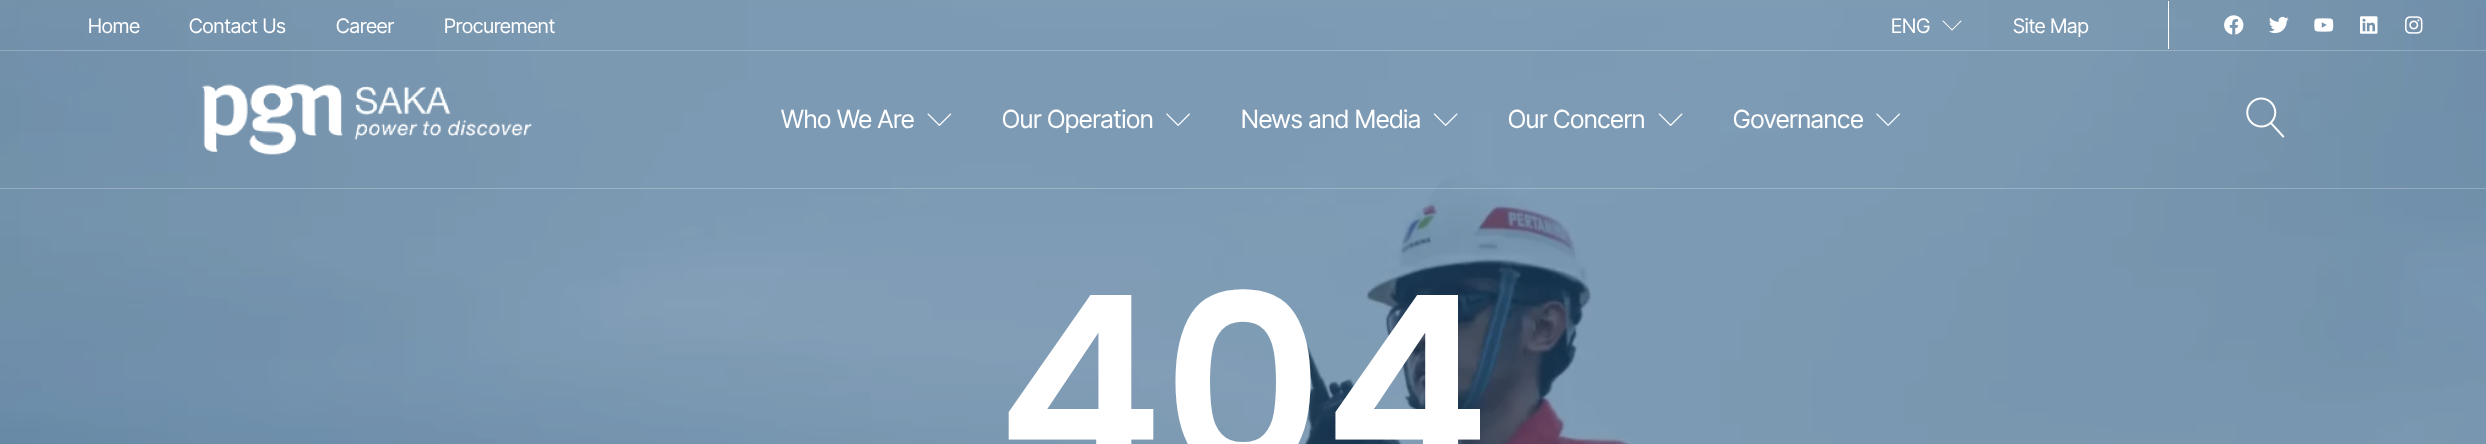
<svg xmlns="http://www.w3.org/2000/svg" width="2486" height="444">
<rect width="100%" height="100%" fill="#fff"/>
<image x="0" y="0" width="2486" height="444" href="media/14.png"/>
<text x="88" y="33" style="font-family:Inter Tight;font-size:20px;fill:#fff">Home</text>
<text x="189" y="33" style="font-family:Inter Tight;font-size:20px;fill:#fff">Contact Us</text>
<text x="336" y="33" style="font-family:Inter Tight;font-size:20px;fill:#fff">Career</text>
<text x="444" y="33" style="font-family:Inter Tight;font-size:20px;fill:#fff">Procurement</text>
<text x="1891" y="33" style="font-family:Inter Tight;font-size:20px;fill:#fff">ENG</text>
<image x="1942" y="20" width="20" height="11" href="media/1.png"/>
<text x="2013" y="33" style="font-family:Inter Tight;font-size:20px;fill:#fff">Site Map</text>
<rect x="2168" y="1" width="1" height="48" fill="#fff"/>
<image x="2224" y="15" width="20" height="20" href="media/2.png"/>
<image x="2269" y="16" width="20" height="18" href="media/3.png"/>
<image x="2314" y="18" width="20" height="14" href="media/4.png"/>
<image x="2360" y="16" width="18" height="18" href="media/5.png"/>
<image x="2405" y="16" width="18" height="18" href="media/6.png"/>
<rect y="50" width="2486" height="1" fill="#ffffff3d"/>
<rect y="188" width="2486" height="1" fill="#ffffff3d"/>
<image x="202" y="84" width="330" height="71" href="media/7.png"/>
<text x="781" y="128" style="font-family:Inter Tight;font-size:25px;fill:#fff">Who We Are</text>
<image x="927" y="113" width="25" height="13" href="media/8.png"/>
<text x="1002" y="128" style="font-family:Inter Tight;font-size:25px;fill:#fff">Our Operation</text>
<image x="1166" y="113" width="24" height="13" href="media/9.png"/>
<text x="1241" y="128" style="font-family:Inter Tight;font-size:25px;fill:#fff">News and Media</text>
<image x="1433" y="113" width="25" height="13" href="media/10.png"/>
<text x="1508" y="128" style="font-family:Inter Tight;font-size:25px;fill:#fff">Our Concern</text>
<image x="1658" y="113" width="25" height="13" href="media/11.png"/>
<text x="1733" y="128" style="font-family:Inter Tight;font-size:25px;fill:#fff">Governance</text>
<image x="1876" y="113" width="24" height="13" href="media/12.png"/>
<image x="2246" y="97" width="39" height="41" href="media/13.png"/>
<text x="997" y="475" style="font-family:Poppins;font-size:250px;font-weight:600;fill:#fff">404</text>
</svg>
